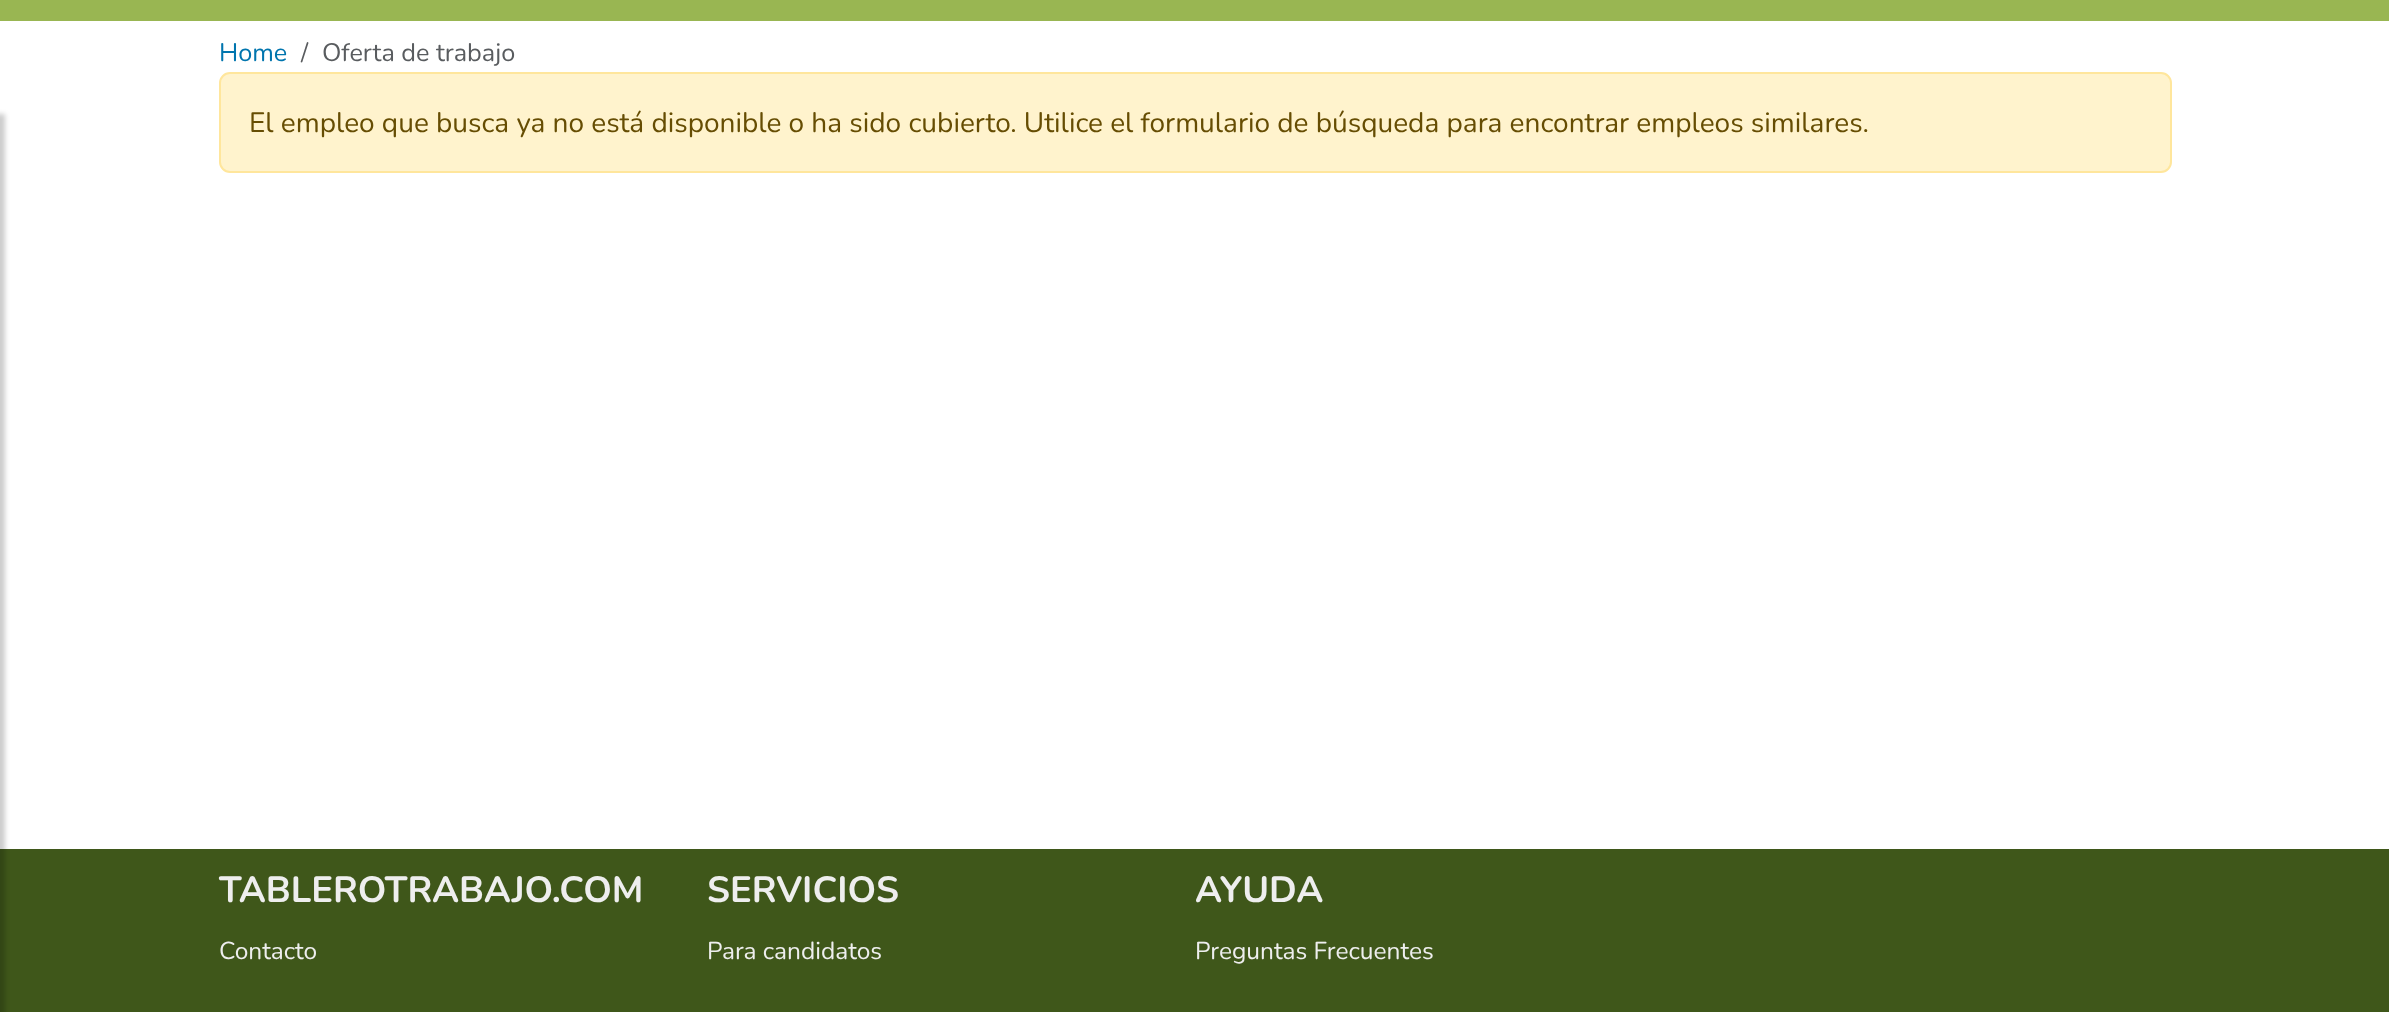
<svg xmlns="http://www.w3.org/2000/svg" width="2389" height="1012">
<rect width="100%" height="100%" fill="#fff"/>
<rect width="2389" height="21" fill="#99b652"/>
<text x="219" y="61" style="font-family:Nunito;font-size:25.25px;fill:#0075ae">Home</text>
<text x="301" y="61" style="font-family:Nunito;font-size:25.25px;fill:#595c5f">/</text>
<text x="322" y="61" style="font-family:Nunito;font-size:25.25px;fill:#595c5f">Oferta de trabajo</text>
<rect x="220" y="73" width="1951" height="99" rx="10" fill="#fff3cd" stroke="#ffe69c" stroke-width="2"/>
<text x="249" y="132" style="font-family:Nunito;font-size:28px;fill:#664d03">El empleo que busca ya no está disponible o ha sido cubierto. Utilice el formulario de búsqueda para encontrar empleos similares.</text>
<rect y="849" width="2389" height="163" fill="#3f571a"/>
<rect x="-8" y="114" width="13" height="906" fill="#00000033" filter="blur(2.5px)"/>
<text x="219" y="902" style="font-family:Nunito;font-size:36.4px;font-weight:bold;fill:#eee">TABLEROTRABAJO.COM</text>
<text x="219" y="959" style="font-family:Nunito;font-size:24.5px;fill:#eee">Contacto</text>
<text x="707" y="902" style="font-family:Nunito;font-size:36.4px;font-weight:bold;fill:#eee">SERVICIOS</text>
<text x="707" y="959" style="font-family:Nunito;font-size:24.5px;fill:#eee">Para candidatos</text>
<text x="1195" y="902" style="font-family:Nunito;font-size:36.4px;font-weight:bold;fill:#eee">AYUDA</text>
<text x="1195" y="959" style="font-family:Nunito;font-size:24.5px;fill:#eee">Preguntas Frecuentes</text>
</svg>
